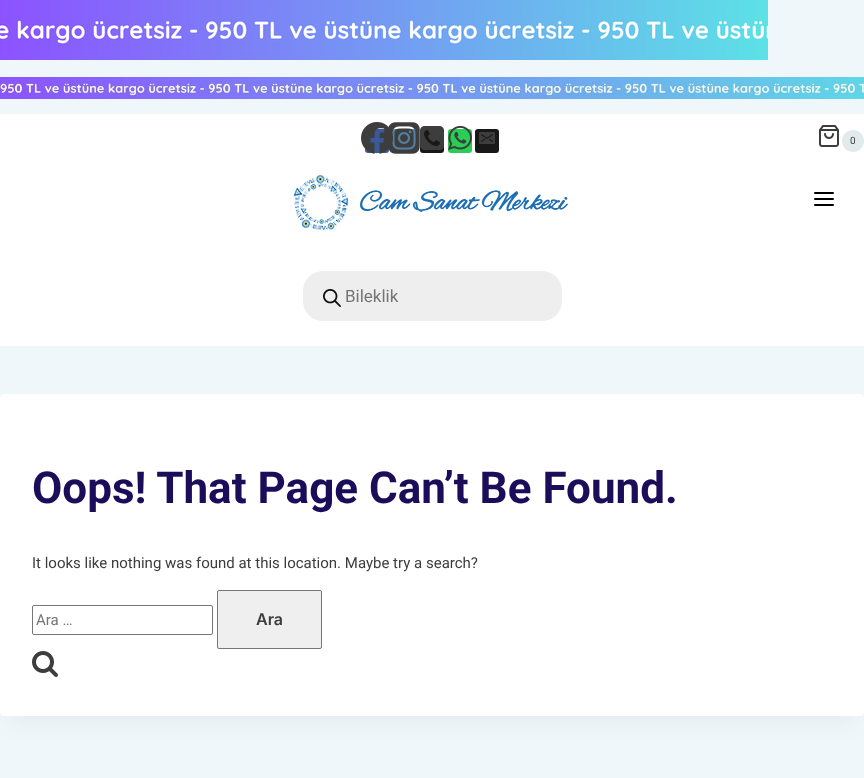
<svg xmlns="http://www.w3.org/2000/svg" width="864" height="778">
<rect width="100%" height="100%" fill="#eff7fb"/>
<image x="0" y="0" width="768" height="60" href="media/1.png"/>
<image x="0" y="77" width="864" height="22" href="media/2.png"/>
<rect y="114" width="864" height="232" fill="#fff"/>
<rect x="365" y="129" width="24" height="24" rx="3" fill="#3b5998"/>
<rect x="392" y="129" width="24" height="24" rx="3" fill="#517fa4"/>
<image x="361" y="122" width="32" height="32" href="media/3.png"/>
<image x="388" y="122" width="32" height="32" href="media/4.png"/>
<rect x="420" y="129" width="24" height="24" rx="3" fill="#181818"/>
<image x="420" y="126" width="24" height="24" href="media/5.png"/>
<rect x="448" y="129" width="24" height="24" rx="3" fill="#28cf54"/>
<image x="448" y="125" width="24" height="25" href="media/6.png"/>
<rect x="475" y="129" width="24" height="24" rx="3" fill="#181818"/>
<image x="479" y="132" width="16" height="12" href="media/7.png"/>
<image x="819" y="125" width="20" height="22" href="media/8.png"/>
<circle cx="853" cy="141" r="11" fill="#e1ebee"/>
<text x="850" y="144" style="font-family:Roboto;font-size:10px;fill:#3d3d3d">0</text>
<image x="293" y="175" width="275" height="55" href="media/9.png"/>
<image x="814" y="192" width="20" height="14" href="media/10.png"/>
<rect x="303" y="271" width="259" height="50" rx="20" fill="#eee"/>
<image x="323" y="289" width="18" height="18" href="media/11.png"/>
<text x="345" y="302" style="font-family:Roboto;font-size:17px;fill:#757575">Bileklik</text>
<rect x="10" y="419" width="844" height="302" fill="#0000000d" filter="blur(12.5px)"/>
<rect y="394" width="864" height="322" rx="4" fill="#fff"/>
<text x="32" y="503" style="font-family:Roboto;font-size:44px;font-weight:bold;fill:#1c0d5a">Oops! That Page Can’t Be Found.</text>
<text x="32" y="568" style="font-family:Roboto;font-size:15px;fill:#3d3d3d">It looks like nothing was found at this location. Maybe try a search?</text>
<rect x="32.5" y="605.5" width="180" height="29" rx="1.5" fill="none" stroke="#767676"/>
<text x="36" y="625" style="font-family:Roboto;font-size:15px;fill:#757575">Ara …</text>
<rect x="217.5" y="590.5" width="104" height="58" rx="1.5" fill="#efefef" stroke="#767676"/>
<text x="256" y="625" style="font-family:Inter;font-size:16px;font-weight:600;fill:#3d3d3d">Ara</text>
<image x="32" y="651" width="26" height="26" href="media/12.png"/>
</svg>
